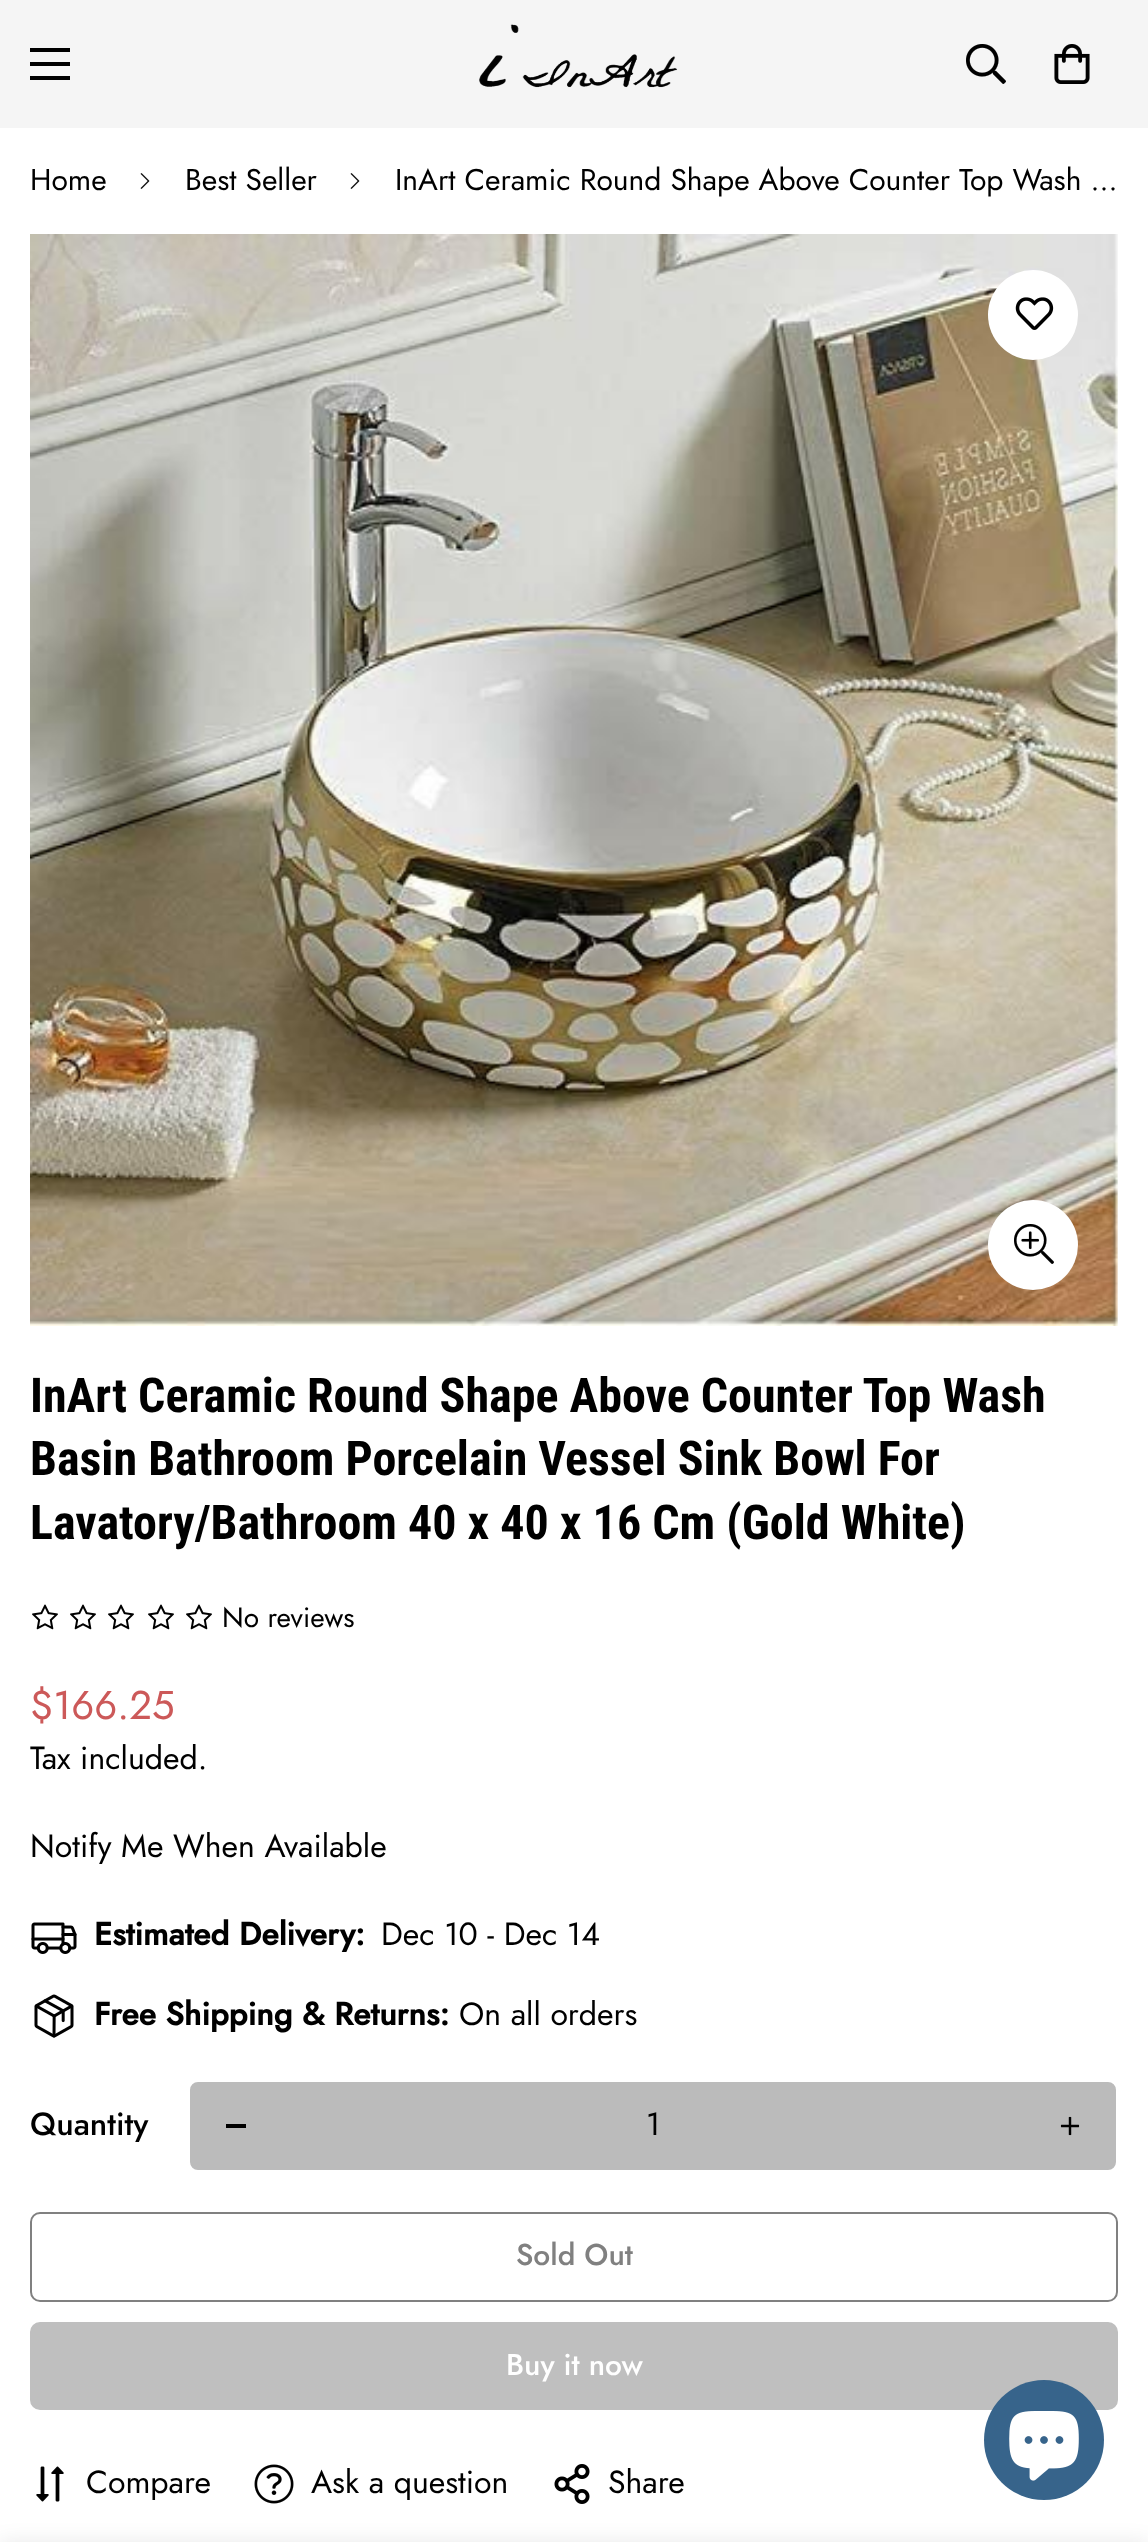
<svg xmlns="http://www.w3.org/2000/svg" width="1148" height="2542">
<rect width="100%" height="100%" fill="#fff"/>
<rect width="1148" height="128" fill="#f5f5f5"/>
<rect x="30" y="62" width="40" height="4" fill="#000"/>
<rect x="30" y="48" width="40" height="4" fill="#000"/>
<rect x="30" y="76" width="40" height="4" fill="#000"/>
<image x="479" y="24" width="199" height="64" href="media/1.png"/>
<image x="966" y="44" width="40" height="40" href="media/2.png"/>
<image x="1054" y="44" width="36" height="40" href="media/3.png"/>
<text x="30" y="190" style="font-family:Jost;font-size:30px;fill:#000">Home</text>
<image x="140" y="173" width="10" height="16" href="media/4.png"/>
<text x="185" y="190" style="font-family:Jost;font-size:30px;fill:#000">Best Seller</text>
<image x="350" y="173" width="10" height="16" href="media/4.png"/>
<text x="395" y="190" style="font-family:Jost;font-size:30px;fill:#000">InArt Ceramic Round Shape Above Counter Top Wash …</text>
<image x="30" y="234" width="1088" height="1092" href="media/5.png"/>
<circle cx="1033" cy="1245" r="45" fill="#fff"/>
<image x="1014" y="1224" width="40" height="40" href="media/6.png"/>
<circle cx="1033" cy="315" r="45" fill="#fff"/>
<image x="1015" y="297" width="39" height="33" href="media/7.png"/>
<text x="30" y="1412" style="font-family:Roboto Condensed;font-size:48px;font-weight:bold;fill:#000">InArt Ceramic Round Shape Above Counter Top Wash</text>
<text x="30" y="1475" style="font-family:Roboto Condensed;font-size:48px;font-weight:bold;fill:#000">Basin Bathroom Porcelain Vessel Sink Bowl For</text>
<text x="30" y="1539" style="font-family:Roboto Condensed;font-size:48px;font-weight:bold;fill:#000">Lavatory/Bathroom 40 x 40 x 16 Cm (Gold White)</text>
<image x="32" y="1604" width="26" height="26" href="media/8.png"/>
<image x="70" y="1604" width="26" height="26" href="media/8.png"/>
<image x="108" y="1604" width="26" height="26" href="media/8.png"/>
<image x="148" y="1604" width="26" height="26" href="media/8.png"/>
<image x="186" y="1604" width="26" height="26" href="media/8.png"/>
<text x="222" y="1627" style="font-family:Jost;font-size:28px;fill:#000">No reviews</text>
<text x="30" y="1719" style="font-family:Jost;font-size:40px;fill:#cc5959">$166.25</text>
<text x="30" y="1769" style="font-family:Jost;font-size:32px;fill:#000">Tax included.</text>
<text x="30" y="1857" style="font-family:Jost;font-size:32px;fill:#000">Notify Me When Available</text>
<image x="31" y="1922" width="46" height="32" href="media/9.png"/>
<text x="94" y="1945" style="font-family:Jost;font-size:32px;font-weight:bold;fill:#000">Estimated Delivery:</text>
<text x="381" y="1945" style="font-family:Jost;font-size:32px;fill:#000">Dec 10 - Dec 14</text>
<image x="34" y="1994" width="40" height="44" href="media/10.png"/>
<text x="94" y="2025" style="font-family:Jost;font-size:32px;font-weight:bold;fill:#000">Free Shipping &amp; Returns:</text>
<text x="459" y="2025" style="font-family:Jost;font-size:32px;fill:#000">On all orders</text>
<text x="30" y="2135" style="font-family:Jost;font-size:32px;font-weight:500;fill:#000">Quantity</text>
<rect x="189" y="2081" width="928" height="90" rx="9" fill="#bbb" stroke="#fff" stroke-width="2"/>
<rect x="226" y="2124" width="20" height="4" fill="#000"/>
<text x="646" y="2135" style="font-family:Jost;font-size:32px;fill:#000">1</text>
<image x="1060" y="2116" width="20" height="20" href="media/11.png"/>
<rect x="31" y="2213" width="1086" height="88" rx="9" fill="none" stroke="#808080" stroke-width="2"/>
<text x="516" y="2265" style="font-family:Jost;font-size:30px;font-weight:500;fill:#808080">Sold Out</text>
<rect x="31" y="2323" width="1086" height="86" rx="9" fill="#bfbfbf" stroke="#bfbfbf" stroke-width="2"/>
<text x="506" y="2375" style="font-family:Jost;font-size:30px;font-weight:500;fill:#fff">Buy it now</text>
<image x="36" y="2466" width="28" height="36" href="media/12.png"/>
<text x="86" y="2493" style="font-family:Jost;font-size:32px;fill:#000">Compare</text>
<image x="254" y="2464" width="40" height="40" href="media/13.png"/>
<text x="311" y="2493" style="font-family:Jost;font-size:32px;fill:#000">Ask a question</text>
<image x="554" y="2464" width="36" height="40" href="media/14.png"/>
<text x="608" y="2493" style="font-family:Jost;font-size:32px;fill:#000">Share</text>
<rect y="2542" width="1148" height="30" fill="#00000017" filter="blur(10px)"/>
<circle cx="1044" cy="2440" r="60" fill="#37648b"/>
<image x="1009" y="2411" width="70" height="70" href="media/15.png"/>
</svg>
